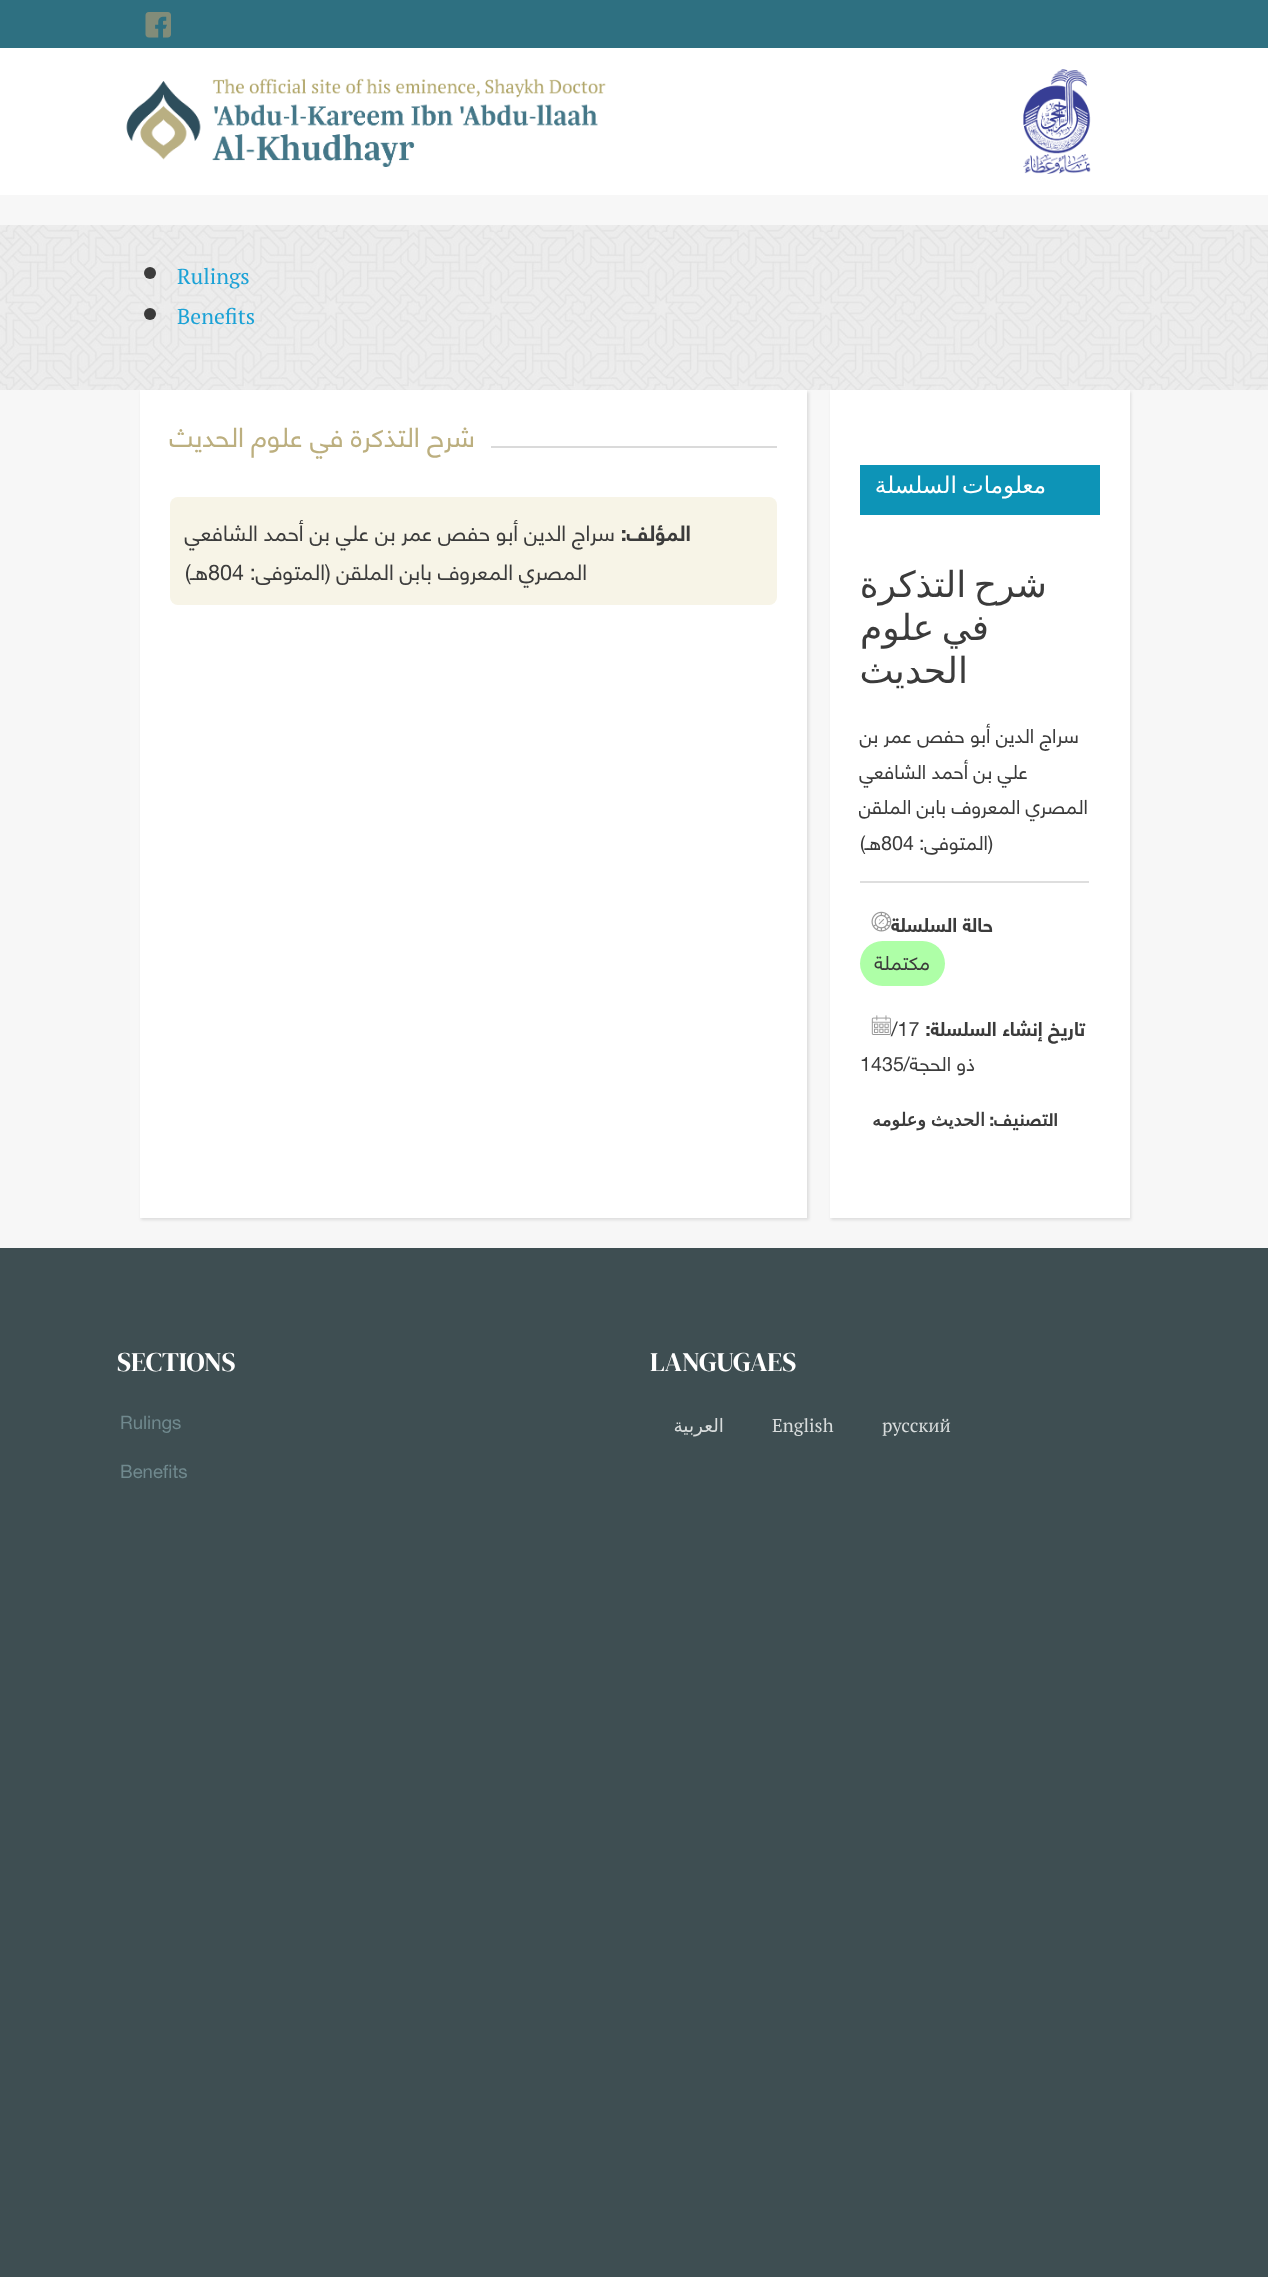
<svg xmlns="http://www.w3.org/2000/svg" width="1268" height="2277">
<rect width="100%" height="100%" fill="#3e4e52"/>
<rect y="195" width="1268" height="1053" fill="#f7f7f7"/>
<rect y="48" width="1268" height="147" fill="#fff"/>
<rect width="1268" height="48" fill="#2e7081"/>
<image x="145" y="12" width="26" height="26" href="media/1.png"/>
<image x="1023" y="69" width="68" height="105" href="media/2.png"/>
<image x="126" y="78" width="480" height="89" href="media/3.png"/>
<image x="0" y="225" width="1268" height="165" href="media/4.png"/>
<text x="177" y="284" style="font-family:PT Serif;font-size:21.6px;fill:#1ca2d6">Rulings</text>
<circle cx="150" cy="273" r="6" fill="#3b3b3b"/>
<text x="177" y="324" style="font-family:PT Serif;font-size:21.6px;fill:#1ca2d6">Benefits</text>
<circle cx="150" cy="314" r="6" fill="#3b3b3b"/>
<rect x="831" y="392" width="300" height="828" fill="#0000001a" filter="blur(1.5px)"/>
<rect x="830" y="390" width="300" height="828" fill="#fff"/>
<rect x="860" y="465" width="240" height="50" fill="#0d94b7"/>
<text x="1046" y="493" word-spacing="-2" style="font-family:DejaVu Sans;font-size:23px;direction:rtl;fill:#fff">معلومات السلسلة</text>
<text x="1047" y="597" word-spacing="-4" style="font-family:DejaVu Sans;font-size:36px;direction:rtl;fill:#3b3b3b">شرح التذكرة</text>
<text x="989" y="640" word-spacing="-4" style="font-family:DejaVu Sans;font-size:36px;direction:rtl;fill:#3b3b3b">في علوم</text>
<text x="968" y="683" style="font-family:DejaVu Sans;font-size:36px;direction:rtl;fill:#3b3b3b">الحديث</text>
<rect x="860" y="881" width="229" height="2" fill="#dedede"/>
<text x="1079" y="743" style="font-family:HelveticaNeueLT;font-size:19.75px;direction:rtl;fill:#3b3b3b">سراج الدين أبو حفص عمر بن</text>
<text x="1028" y="779" style="font-family:HelveticaNeueLT;font-size:19.75px;direction:rtl;fill:#3b3b3b">علي بن أحمد الشافعي</text>
<text x="1088" y="814" style="font-family:HelveticaNeueLT;font-size:19.75px;direction:rtl;fill:#3b3b3b">المصري المعروف بابن الملقن</text>
<text x="993" y="850" style="font-family:HelveticaNeueLT;font-size:19.75px;direction:rtl;fill:#3b3b3b">(المتوفى:</text>
<text x="881" y="850" style="font-family:HelveticaNeueLT;font-size:19.75px;fill:#3b3b3b">804</text>
<text x="881" y="850" style="font-family:HelveticaNeueLT;font-size:19.75px;direction:rtl;fill:#3b3b3b">هـ)</text>
<image x="871" y="911" width="21" height="21" href="media/5.png"/>
<text x="993" y="932" style="font-family:HelveticaNeueLT;font-size:19.75px;font-weight:bold;direction:rtl;fill:#3b3b3b">حالة السلسلة</text>
<rect x="860" y="941" width="85" height="45" rx="22.5" fill="#aeffa7"/>
<text x="930" y="970" style="font-family:HelveticaNeueLT;font-size:19.75px;direction:rtl;fill:#3b3b3b">مكتملة</text>
<text x="1085" y="1036" style="font-family:HelveticaNeueLT;font-size:19.75px;font-weight:bold;direction:rtl;fill:#3b3b3b">تاريخ إنشاء السلسلة:</text>
<image x="871" y="1015" width="20" height="20" href="media/6.png"/>
<text x="891" y="1036" style="font-family:HelveticaNeueLT;font-size:19.75px;fill:#3b3b3b">/17</text>
<text x="975" y="1071" style="font-family:HelveticaNeueLT;font-size:19.75px;direction:rtl;fill:#3b3b3b">ذو الحجة/</text>
<text x="860" y="1071" style="font-family:HelveticaNeueLT;font-size:19.75px;fill:#3b3b3b">1435</text>
<text x="1058" y="1126" style="font-family:HelveticaNeueLT;font-size:18px;font-weight:bold;direction:rtl;fill:#3b3b3b">التصنيف:</text>
<text x="985" y="1126" word-spacing="-1" style="font-family:DejaVu Sans;font-size:18px;font-weight:bold;direction:rtl;fill:#3b3b3b">الحديث وعلومه</text>
<rect x="141" y="392" width="668" height="828" fill="#0000001a" filter="blur(1.5px)"/>
<rect x="140" y="390" width="667" height="828" fill="#fff"/>
<rect x="491" y="446" width="286" height="2" fill="#dadada"/>
<text x="475" y="447" style="font-family:HelveticaNeueLT;font-size:27px;direction:rtl;fill:#bcaf7f">شرح التذكرة في علوم الحديث</text>
<rect x="170" y="497" width="607" height="108" rx="8" fill="#f7f4e7"/>
<text x="691" y="541" style="font-family:HelveticaNeueLT;font-size:21.6px;font-weight:bold;direction:rtl;fill:#3b3b3b">المؤلف:</text>
<text x="615" y="541" style="font-family:HelveticaNeueLT;font-size:21.6px;direction:rtl;fill:#3b3b3b">سراج الدين أبو حفص عمر بن علي بن أحمد الشافعي</text>
<text x="587" y="580" style="font-family:HelveticaNeueLT;font-size:21.6px;direction:rtl;fill:#3b3b3b">المصري المعروف بابن الملقن (المتوفى:</text>
<text x="208" y="580" style="font-family:HelveticaNeueLT;font-size:21.6px;fill:#3b3b3b">804</text>
<text x="208" y="580" style="font-family:HelveticaNeueLT;font-size:21.6px;direction:rtl;fill:#3b3b3b">هـ)</text>
<text x="650" y="1371" style="font-family:DM Serif Display;font-size:27px;fill:#fff">LANGUGAES</text>
<text x="882" y="1432" style="font-family:PT Serif;font-size:18.5px;fill:#d8dcdc">русский</text>
<text x="772" y="1432" style="font-family:PT Serif;font-size:18.5px;fill:#d8dcdc">English</text>
<text x="724" y="1432" style="font-family:DejaVu Sans;font-size:18.5px;direction:rtl;fill:#d8dcdc">العربية</text>
<text x="117" y="1371" style="font-family:DM Serif Display;font-size:27px;fill:#fff">SECTIONS</text>
<text x="120" y="1429" style="font-family:HelveticaNeueLT;font-size:18.5px;fill:#70898e">Rulings</text>
<text x="120" y="1478" style="font-family:HelveticaNeueLT;font-size:18.5px;fill:#70898e">Benefits</text>
</svg>
